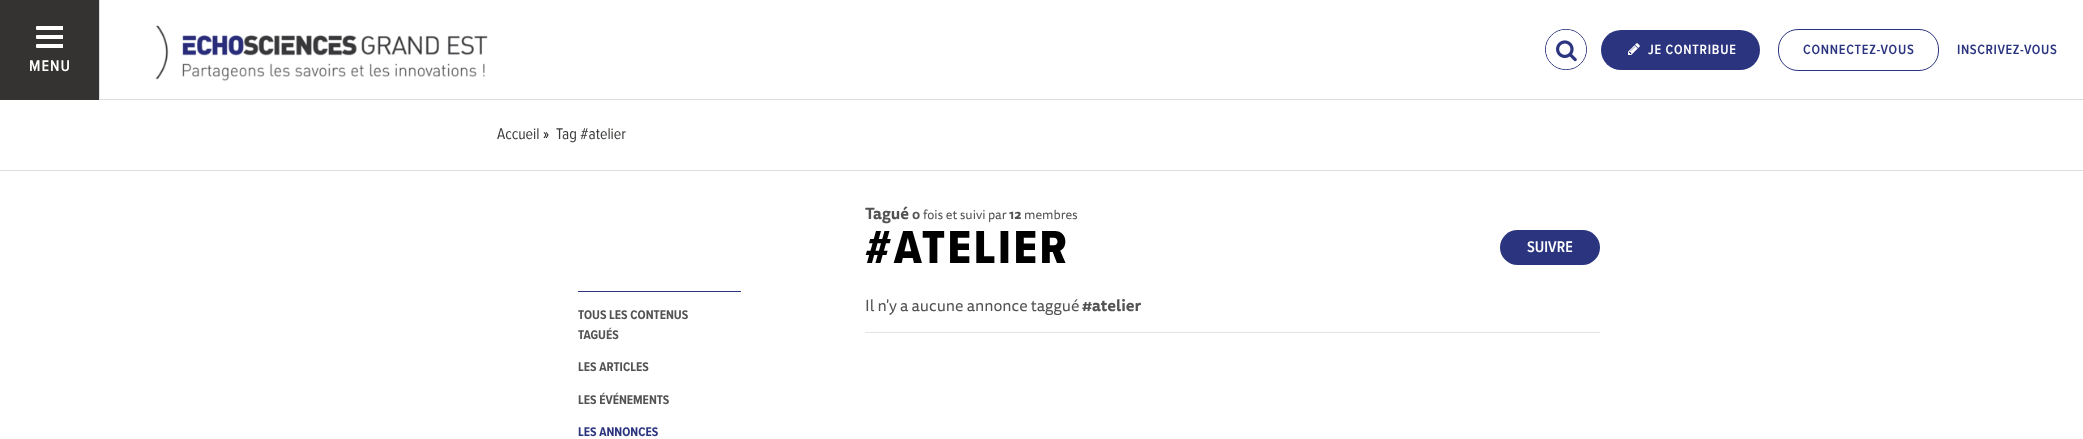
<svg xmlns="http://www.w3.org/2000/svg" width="2083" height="439">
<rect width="100%" height="100%" fill="#fff"/>
<rect x="100" y="99" width="1983" height="1" fill="#ddd"/>
<image x="155" y="25" width="333" height="56" href="media/1.png"/>
<rect x="1545.5" y="29.5" width="41" height="40" rx="20" fill="none" stroke="#2b347f"/>
<rect x="1546" y="30" width="40" height="39" rx="19.5" fill="#fff"/>
<image x="1556" y="40" width="21" height="22" href="media/2.png"/>
<rect x="1601" y="30" width="159" height="40" rx="20" fill="#2b347f"/>
<image x="1628" y="43" width="12" height="12" href="media/3.png"/>
<text x="1648" y="54" style="font-family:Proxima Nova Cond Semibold;font-size:14px;font-weight:600;letter-spacing:0.75px;fill:#fff">JE CONTRIBUE</text>
<rect x="1778.5" y="29.5" width="160" height="41" rx="19.5" fill="none" stroke="#2b347f"/>
<text x="1803" y="54" style="font-family:Proxima Nova Cond Semibold;font-size:14px;font-weight:600;letter-spacing:0.75px;fill:#2b347f">CONNECTEZ-VOUS</text>
<text x="1957" y="54" style="font-family:Proxima Nova Cond Semibold;font-size:14px;font-weight:600;letter-spacing:0.6px;fill:#2b347f">INSCRIVEZ-VOUS</text>
<rect width="99" height="100" fill="#353332"/>
<rect x="99" width="1" height="100" fill="#ddd"/>
<rect x="36" y="26" width="28" height="4" rx="1" fill="#fff"/>
<rect x="63" y="26" width="1" height="4" fill="#353332"/>
<rect x="36" y="35" width="28" height="4" rx="1" fill="#fff"/>
<rect x="63" y="35" width="1" height="4" fill="#353332"/>
<rect x="36" y="44" width="28" height="4" rx="1" fill="#fff"/>
<rect x="63" y="44" width="1" height="4" fill="#353332"/>
<text x="29" y="71" style="font-family:Proxima Nova Cond Semibold;font-size:16px;font-weight:600;letter-spacing:1px;fill:#fff">MENU</text>
<rect y="170" width="2083" height="1" fill="#ddd"/>
<text x="497" y="139" style="font-family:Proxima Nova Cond;font-size:16px;fill:#3b3938">Accueil</text>
<text x="543" y="139" style="font-family:Proxima Nova Cond;font-size:16px;fill:#000">»</text>
<text x="556" y="139" style="font-family:Proxima Nova Cond;font-size:16px;fill:#3b3938">Tag #atelier</text>
<text x="865" y="219" style="font-family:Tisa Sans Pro;font-size:16px;font-weight:bold;fill:#535353">Tagué</text>
<text x="912" y="219" style="font-family:Tisa Sans Pro;font-size:12.75px;font-weight:bold;fill:#535353">0</text>
<text x="923" y="219" style="font-family:Tisa Sans Pro;font-size:12.75px;fill:#535353">fois et suivi par</text>
<text x="1009" y="219" style="font-family:Tisa Sans Pro;font-size:12.75px;font-weight:bold;fill:#535353">12</text>
<text x="1024" y="219" style="font-family:Tisa Sans Pro;font-size:12.75px;fill:#535353">membres</text>
<text x="865" y="263" style="font-family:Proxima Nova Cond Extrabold;font-size:48px;font-weight:800;letter-spacing:2.5px;fill:#000">#ATELIER</text>
<rect x="1500" y="230" width="100" height="35" rx="17.5" fill="#2b347f"/>
<text x="1527" y="252" style="font-family:Proxima Nova Cond Semibold;font-size:16px;font-weight:600;fill:#fff">SUIVRE</text>
<text x="865" y="311" style="font-family:Tisa Sans Pro;font-size:16px;fill:#535353">Il n'y a aucune annonce taggué</text>
<text x="1082" y="311" style="font-family:Tisa Sans Pro;font-size:16px;font-weight:bold;fill:#535353">#atelier</text>
<rect x="865" y="332" width="735" height="1" fill="#e3e3e3"/>
<rect x="578" y="291" width="163" height="1" fill="#2b347f"/>
<text x="578" y="319" style="font-family:Proxima Nova Cond;font-size:13px;font-weight:bold;fill:#535353">TOUS LES CONTENUS</text>
<text x="578" y="339" style="font-family:Proxima Nova Cond;font-size:13px;font-weight:bold;fill:#535353">TAGUÉS</text>
<text x="578" y="371" style="font-family:Proxima Nova Cond;font-size:13px;font-weight:bold;fill:#535353">LES ARTICLES</text>
<text x="578" y="404" style="font-family:Proxima Nova Cond;font-size:13px;font-weight:bold;fill:#535353">LES ÉVÉNEMENTS</text>
<text x="578" y="436" style="font-family:Proxima Nova Cond;font-size:13px;font-weight:bold;fill:#2b347f">LES ANNONCES</text>
</svg>
